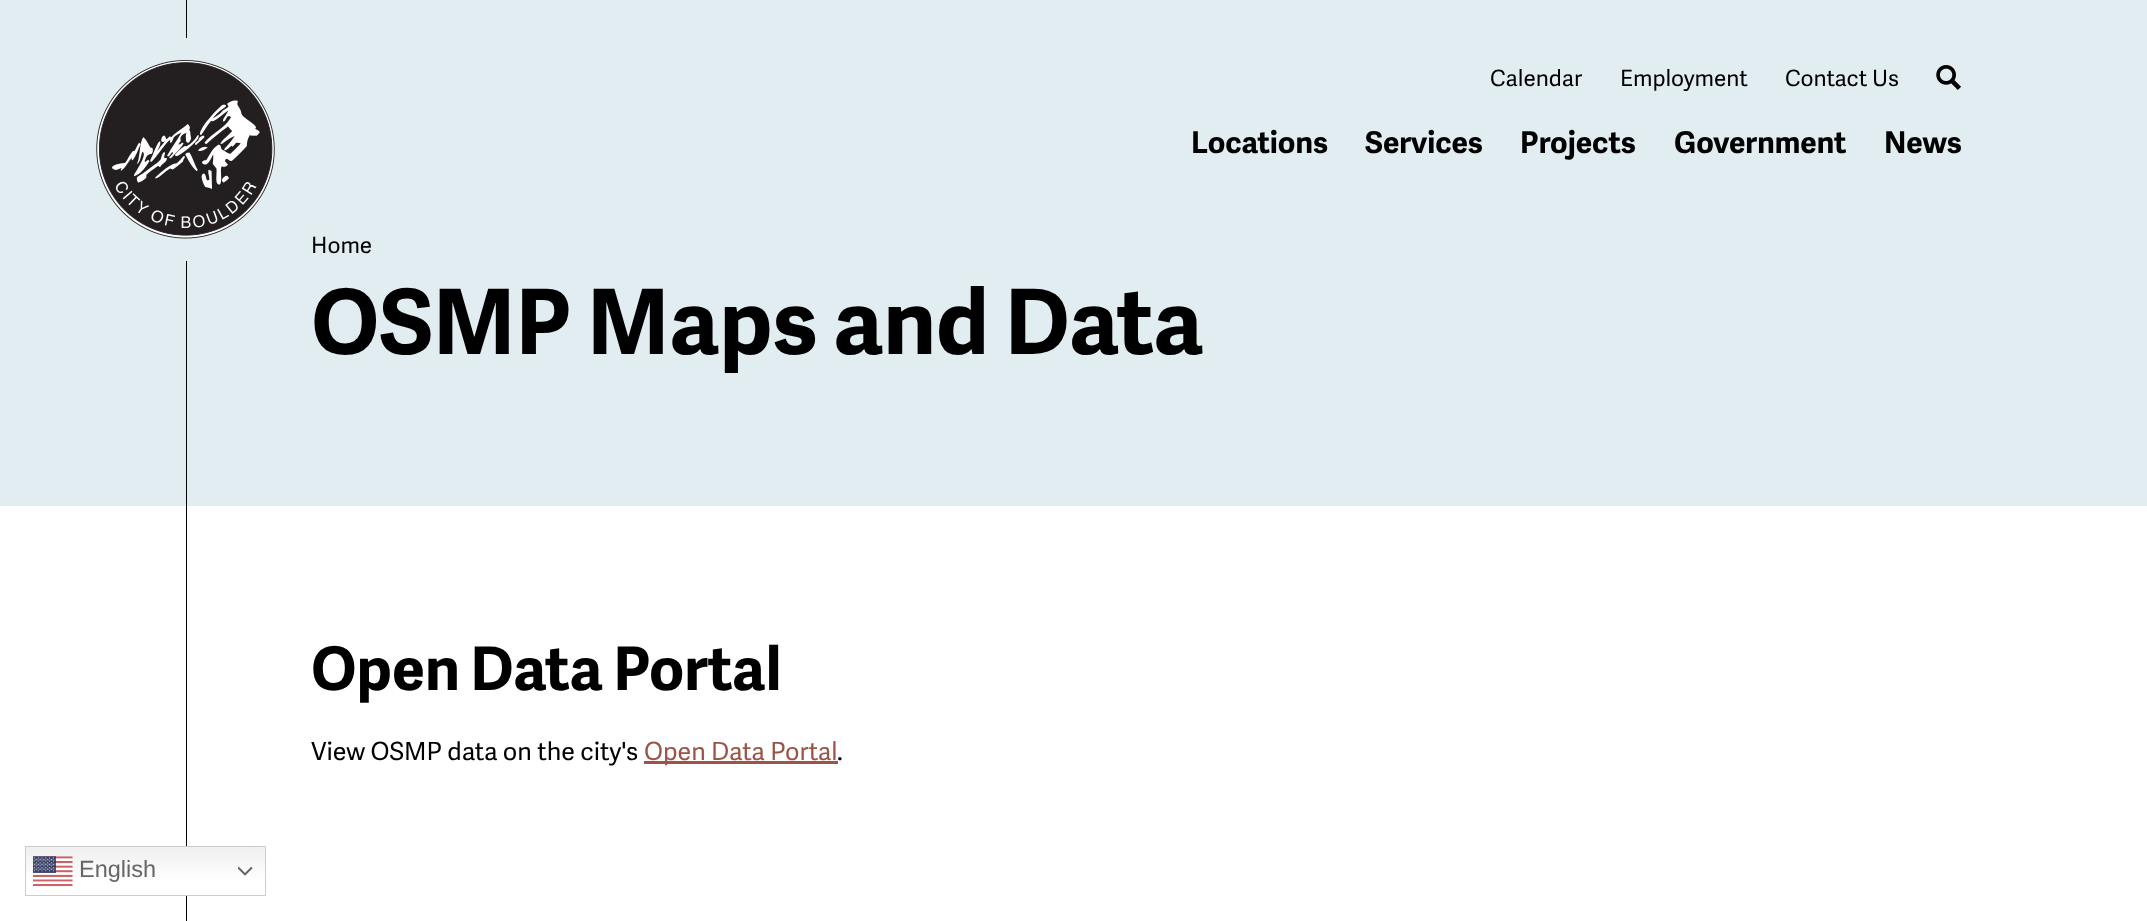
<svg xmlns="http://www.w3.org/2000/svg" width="2147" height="921">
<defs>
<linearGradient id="g1" gradientUnits="userSpaceOnUse" x1="146" y1="846" x2="146" y2="896"><stop offset="0" stop-color="#efefef"/><stop offset="0.7" stop-color="#fff"/></linearGradient>
</defs>
<rect width="100%" height="100%" fill="#fff"/>
<rect width="2147" height="506" fill="#e2edf2"/>
<rect x="186" width="1" height="38" fill="#000"/>
<image x="96" y="60" width="179" height="179" href="media/1.png"/>
<text x="1490" y="86" style="font-family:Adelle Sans;font-size:22.5px;fill:#000">Calendar</text>
<text x="1620" y="86" style="font-family:Adelle Sans;font-size:22.5px;fill:#000">Employment</text>
<text x="1785" y="86" style="font-family:Adelle Sans;font-size:22.5px;fill:#000">Contact Us</text>
<image x="1936" y="65" width="25" height="25" href="media/2.png"/>
<text x="1191" y="153" style="font-family:Adelle Sans;font-size:30px;font-weight:bold;fill:#000">Locations</text>
<text x="1365" y="153" style="font-family:Adelle Sans;font-size:30px;font-weight:bold;fill:#000">Services</text>
<text x="1520" y="153" style="font-family:Adelle Sans;font-size:30px;font-weight:bold;fill:#000">Projects</text>
<text x="1674" y="153" style="font-family:Adelle Sans;font-size:30px;font-weight:bold;fill:#000">Government</text>
<text x="1884" y="153" style="font-family:Adelle Sans;font-size:30px;font-weight:bold;fill:#000">News</text>
<text x="311" y="253" style="font-family:Adelle Sans;font-size:22.5px;fill:#000">Home</text>
<rect x="186" y="261" width="1" height="660" fill="#000"/>
<text x="311" y="354" style="font-family:Adelle Sans;font-size:90px;font-weight:bold;fill:#000">OSMP Maps and Data</text>
<text x="311" y="690" style="font-family:Adelle Sans;font-size:60px;font-weight:bold;fill:#000">Open Data Portal</text>
<text x="311" y="760" style="font-family:Adelle Sans;font-size:25px;fill:#000">View OSMP data on the city's</text>
<rect x="644" y="761" width="194" height="3" fill="#9c5449"/>
<text x="644" y="760" style="font-family:Adelle Sans;font-size:25px;fill:#9c5449">Open Data Portal</text>
<text x="837" y="760" style="font-family:Adelle Sans;font-size:25px;fill:#000">.</text>
<rect x="26" y="847" width="239" height="48" fill="url(#g1)"/>
<rect x="25.5" y="846.5" width="240" height="49" fill="none" stroke="#ccc"/>
<image x="33" y="856" width="40" height="31" href="media/3.png"/>
<text x="79" y="877" style="font-family:Liberation Sans;font-size:23.5px;fill:#666">English</text>
<image x="238" y="866" width="15" height="10" href="media/4.png"/>
</svg>
